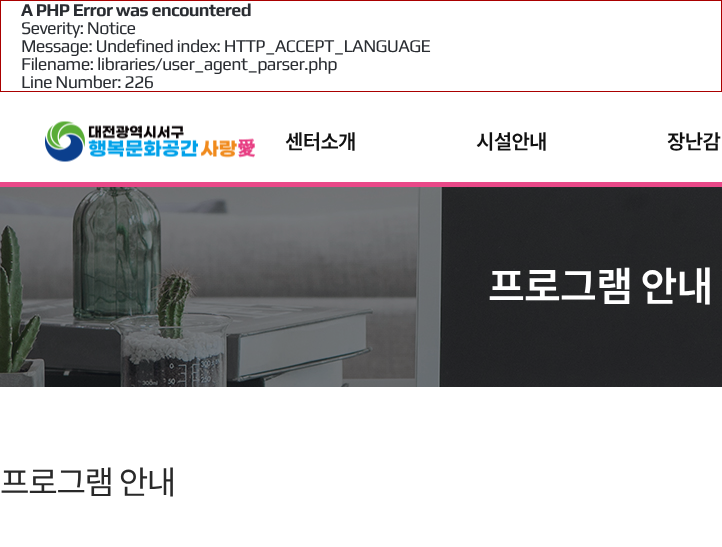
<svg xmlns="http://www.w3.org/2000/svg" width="722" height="547">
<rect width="100%" height="100%" fill="#fff"/>
<rect x="0.5" y="0.5" width="721" height="91" fill="none" stroke="#a00"/>
<text x="21" y="16" style="font-family:Play;font-size:18px;font-weight:bold;letter-spacing:-0.7px;fill:#2a2d32">A PHP Error was encountered</text>
<text x="21" y="34" style="font-family:Play;font-size:18px;letter-spacing:-0.7px;fill:#2a2d32">Severity: Notice</text>
<text x="21" y="52" style="font-family:Play;font-size:18px;letter-spacing:-0.7px;fill:#2a2d32">Message: Undefined index: HTTP_ACCEPT_LANGUAGE</text>
<text x="21" y="70" style="font-family:Play;font-size:18px;letter-spacing:-0.7px;fill:#2a2d32">Filename: libraries/user_agent_parser.php</text>
<text x="21" y="88" style="font-family:Play;font-size:18px;letter-spacing:-0.7px;fill:#2a2d32">Line Number: 226</text>
<rect y="182" width="722" height="5" fill="#e94888"/>
<image x="45" y="121" width="210" height="41" href="media/1.png"/>
<text x="285" y="149" style="font-family:Noto Sans KR;font-size:20px;font-weight:600;letter-spacing:-0.7px;fill:#111">센터소개</text>
<text x="476" y="149" style="font-family:Noto Sans KR;font-size:20px;font-weight:600;letter-spacing:-0.7px;fill:#111">시설안내</text>
<text x="667" y="149" style="font-family:Noto Sans KR;font-size:20px;font-weight:600;letter-spacing:-0.7px;fill:#111">장난감</text>
<image x="0" y="187" width="722" height="200" href="media/2.png"/>
<text x="488" y="301" style="font-family:Noto Sans KR;font-size:40px;font-weight:600;letter-spacing:-0.75px;fill:#fff">프로그램 안내</text>
<text x="0" y="494" style="font-family:Noto Sans KR;font-size:32px;letter-spacing:-1.25px;fill:#292929">프로그램 안내</text>
</svg>
